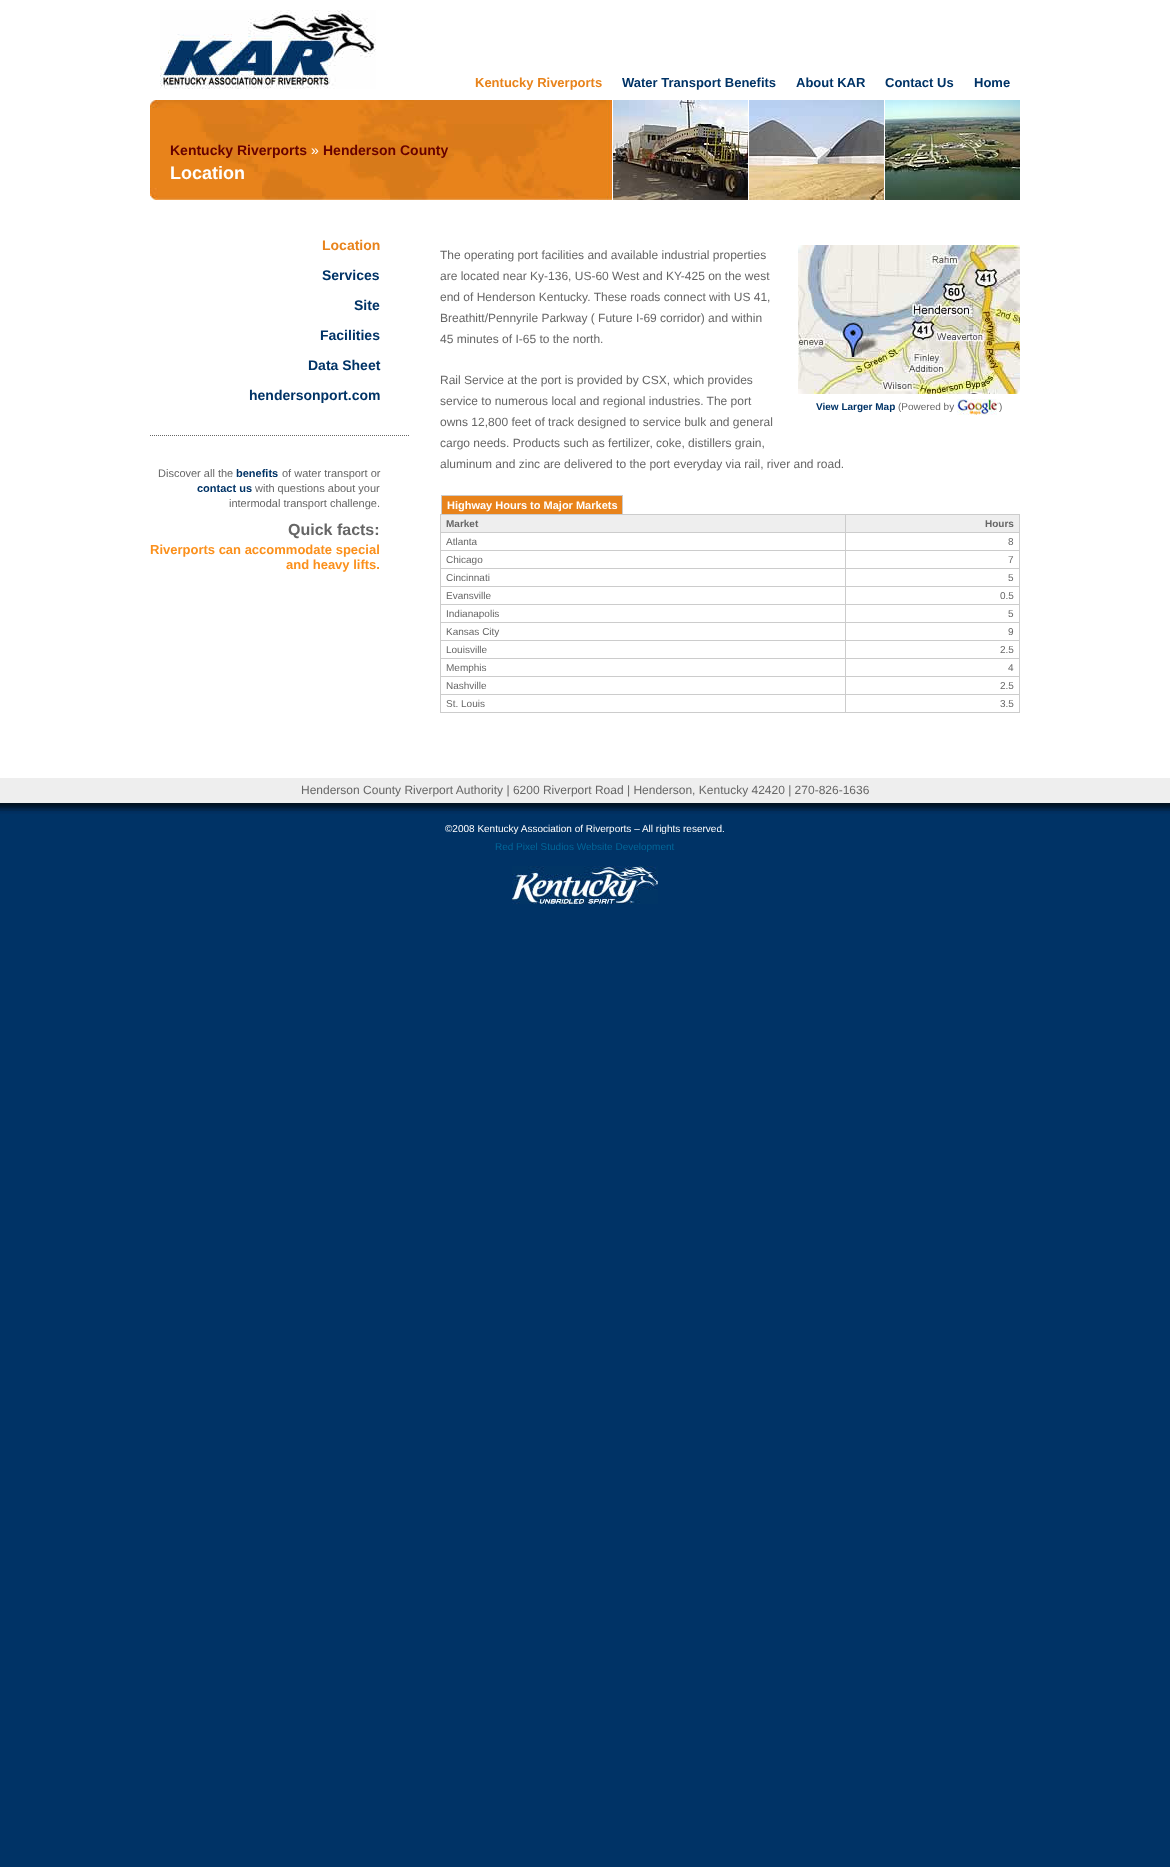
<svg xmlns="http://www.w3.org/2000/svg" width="1170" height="1867">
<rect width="100%" height="100%" fill="#036"/>
<rect width="1170" height="778" fill="#fff"/>
<image x="160" y="10" width="216" height="79" href="media/1.png"/>
<text x="475" y="87" style="font-family:Liberation Sans;font-size:13px;font-weight:bold;fill:#e8831b">Kentucky Riverports</text>
<text x="622" y="87" style="font-family:Liberation Sans;font-size:13px;font-weight:bold;fill:#036">Water Transport Benefits</text>
<text x="796" y="87" style="font-family:Liberation Sans;font-size:13px;font-weight:bold;fill:#036">About KAR</text>
<text x="885" y="87" style="font-family:Liberation Sans;font-size:13px;font-weight:bold;fill:#036">Contact Us</text>
<text x="974" y="87" style="font-family:Liberation Sans;font-size:13px;font-weight:bold;fill:#036">Home</text>
<image x="150" y="100" width="462" height="100" href="media/2.png"/>
<text x="170" y="155" style="font-family:Liberation Sans;font-size:14px;font-weight:bold;fill:#600">Kentucky Riverports</text>
<text x="311" y="155" style="font-family:Liberation Sans;font-size:14px;fill:#fff">»</text>
<text x="323" y="155" style="font-family:Liberation Sans;font-size:14px;font-weight:bold;fill:#600">Henderson County</text>
<text x="170" y="179" style="font-family:Liberation Sans;font-size:18px;font-weight:bold;fill:#fff">Location</text>
<image x="613" y="100" width="135" height="100" href="media/3.png"/>
<image x="749" y="100" width="135" height="100" href="media/4.png"/>
<image x="885" y="100" width="135" height="100" href="media/5.png"/>
<path d="M150 435.5h260" fill="none" stroke="#666" stroke-dasharray="1 1"/>
<text x="322" y="250" style="font-family:Liberation Sans;font-size:14px;font-weight:bold;fill:#e8831b">Location</text>
<text x="322" y="280" style="font-family:Liberation Sans;font-size:14px;font-weight:bold;fill:#036">Services</text>
<text x="354" y="310" style="font-family:Liberation Sans;font-size:14px;font-weight:bold;fill:#036">Site</text>
<text x="320" y="340" style="font-family:Liberation Sans;font-size:14px;font-weight:bold;fill:#036">Facilities</text>
<text x="308" y="370" style="font-family:Liberation Sans;font-size:14px;font-weight:bold;fill:#036">Data Sheet</text>
<text x="249" y="400" style="font-family:Liberation Sans;font-size:14px;font-weight:bold;fill:#036">hendersonport.com</text>
<text x="158" y="477" style="font-family:Liberation Sans;font-size:11px;fill:#666">Discover all the</text>
<text x="236" y="477" style="font-family:Liberation Sans;font-size:11px;font-weight:bold;fill:#036">benefits</text>
<text x="282" y="477" style="font-family:Liberation Sans;font-size:11px;fill:#666">of water transport or</text>
<text x="197" y="492" style="font-family:Liberation Sans;font-size:11px;font-weight:bold;fill:#036">contact us</text>
<text x="255" y="492" style="font-family:Liberation Sans;font-size:11px;fill:#666">with questions about your</text>
<text x="229" y="507" style="font-family:Liberation Sans;font-size:11px;fill:#666">intermodal transport challenge.</text>
<text x="288" y="535" style="font-family:Liberation Sans;font-size:16px;font-weight:bold;fill:#666">Quick facts:</text>
<text x="150" y="554" style="font-family:Liberation Sans;font-size:13px;font-weight:bold;fill:#fb901c">Riverports can accommodate special</text>
<text x="286" y="569" style="font-family:Liberation Sans;font-size:13px;font-weight:bold;fill:#fb901c">and heavy lifts.</text>
<text x="440" y="259" style="font-family:Liberation Sans;font-size:12px;fill:#666">The operating port facilities and available industrial properties</text>
<text x="440" y="280" style="font-family:Liberation Sans;font-size:12px;fill:#666">are located near Ky-136, US-60 West and KY-425 on the west</text>
<text x="440" y="301" style="font-family:Liberation Sans;font-size:12px;fill:#666">end of Henderson Kentucky. These roads connect with US 41,</text>
<text x="440" y="322" style="font-family:Liberation Sans;font-size:12px;fill:#666">Breathitt/Pennyrile Parkway ( Future I-69 corridor) and within</text>
<text x="440" y="343" style="font-family:Liberation Sans;font-size:12px;fill:#666">45 minutes of I-65 to the north.</text>
<text x="440" y="384" style="font-family:Liberation Sans;font-size:12px;fill:#666">Rail Service at the port is provided by CSX, which provides</text>
<text x="440" y="405" style="font-family:Liberation Sans;font-size:12px;fill:#666">service to numerous local and regional industries. The port</text>
<text x="440" y="426" style="font-family:Liberation Sans;font-size:12px;fill:#666">owns 12,800 feet of track designed to service bulk and general</text>
<text x="440" y="447" style="font-family:Liberation Sans;font-size:12px;fill:#666">cargo needs. Products such as fertilizer, coke, distillers grain,</text>
<text x="440" y="468" style="font-family:Liberation Sans;font-size:12px;fill:#666">aluminum and zinc are delivered to the port everyday via rail, river and road.</text>
<image x="798" y="245" width="222" height="149" href="media/6.png"/>
<text x="816" y="410" style="font-family:Liberation Sans;font-size:10px;font-weight:bold;fill:#036">View Larger Map</text>
<text x="898" y="410" style="font-family:Liberation Sans;font-size:10px;fill:#666">(Powered by</text>
<image x="957" y="399" width="42" height="16" href="media/7.png"/>
<text x="999" y="410" style="font-family:Liberation Sans;font-size:10px;fill:#666">)</text>
<rect x="442" y="496" width="180" height="18" fill="#e8831b"/>
<rect x="441" y="495" width="182" height="1" fill="#ccc"/>
<rect x="622" y="495" width="1" height="19" fill="#ccc"/>
<rect x="441" y="495" width="1" height="19" fill="#ccc"/>
<text x="447" y="509" style="font-family:Liberation Sans;font-size:11px;font-weight:bold;fill:#fff">Highway Hours to Major Markets</text>
<rect x="441" y="515" width="404" height="17" fill="#eee"/>
<rect x="845" y="514" width="175" height="1" fill="#ccc"/>
<rect x="845" y="532" width="175" height="1" fill="#ccc"/>
<rect x="845" y="550" width="175" height="1" fill="#ccc"/>
<rect x="845" y="568" width="175" height="1" fill="#ccc"/>
<rect x="845" y="586" width="175" height="1" fill="#ccc"/>
<rect x="845" y="604" width="175" height="1" fill="#ccc"/>
<rect x="845" y="622" width="175" height="1" fill="#ccc"/>
<rect x="845" y="640" width="175" height="1" fill="#ccc"/>
<rect x="845" y="658" width="175" height="1" fill="#ccc"/>
<rect x="845" y="676" width="175" height="1" fill="#ccc"/>
<rect x="845" y="694" width="175" height="1" fill="#ccc"/>
<rect x="1019" y="694" width="1" height="19" fill="#ccc"/>
<rect x="845" y="712" width="175" height="1" fill="#ccc"/>
<rect x="845" y="694" width="1" height="19" fill="#ccc"/>
<rect x="440" y="694" width="406" height="1" fill="#ccc"/>
<rect x="845" y="676" width="1" height="19" fill="#ccc"/>
<rect x="440" y="676" width="406" height="1" fill="#ccc"/>
<rect x="845" y="658" width="1" height="19" fill="#ccc"/>
<rect x="440" y="658" width="406" height="1" fill="#ccc"/>
<rect x="845" y="640" width="1" height="19" fill="#ccc"/>
<rect x="440" y="640" width="406" height="1" fill="#ccc"/>
<rect x="845" y="622" width="1" height="19" fill="#ccc"/>
<rect x="440" y="622" width="406" height="1" fill="#ccc"/>
<rect x="845" y="604" width="1" height="19" fill="#ccc"/>
<rect x="440" y="604" width="406" height="1" fill="#ccc"/>
<rect x="845" y="586" width="1" height="19" fill="#ccc"/>
<rect x="440" y="586" width="406" height="1" fill="#ccc"/>
<rect x="845" y="568" width="1" height="19" fill="#ccc"/>
<rect x="440" y="568" width="406" height="1" fill="#ccc"/>
<rect x="845" y="550" width="1" height="19" fill="#ccc"/>
<rect x="440" y="550" width="406" height="1" fill="#ccc"/>
<rect x="845" y="532" width="1" height="19" fill="#ccc"/>
<rect x="440" y="532" width="406" height="1" fill="#ccc"/>
<rect x="845" y="514" width="1" height="19" fill="#ccc"/>
<rect x="440" y="514" width="406" height="1" fill="#ccc"/>
<rect x="440" y="712" width="406" height="1" fill="#ccc"/>
<rect x="440" y="694" width="1" height="19" fill="#ccc"/>
<rect x="440" y="676" width="1" height="19" fill="#ccc"/>
<rect x="440" y="658" width="1" height="19" fill="#ccc"/>
<rect x="440" y="640" width="1" height="19" fill="#ccc"/>
<rect x="440" y="622" width="1" height="19" fill="#ccc"/>
<rect x="440" y="604" width="1" height="19" fill="#ccc"/>
<rect x="440" y="586" width="1" height="19" fill="#ccc"/>
<rect x="440" y="568" width="1" height="19" fill="#ccc"/>
<rect x="440" y="550" width="1" height="19" fill="#ccc"/>
<rect x="440" y="532" width="1" height="19" fill="#ccc"/>
<rect x="440" y="514" width="1" height="19" fill="#ccc"/>
<text x="446" y="527" style="font-family:Liberation Sans;font-size:10px;font-weight:bold;fill:#666">Market</text>
<rect x="846" y="515" width="173" height="17" fill="#eee"/>
<rect x="1019" y="676" width="1" height="19" fill="#ccc"/>
<rect x="1019" y="658" width="1" height="19" fill="#ccc"/>
<rect x="1019" y="640" width="1" height="19" fill="#ccc"/>
<rect x="1019" y="622" width="1" height="19" fill="#ccc"/>
<rect x="1019" y="604" width="1" height="19" fill="#ccc"/>
<rect x="1019" y="586" width="1" height="19" fill="#ccc"/>
<rect x="1019" y="568" width="1" height="19" fill="#ccc"/>
<rect x="1019" y="550" width="1" height="19" fill="#ccc"/>
<rect x="1019" y="532" width="1" height="19" fill="#ccc"/>
<rect x="1019" y="514" width="1" height="19" fill="#ccc"/>
<text x="985" y="527" style="font-family:Liberation Sans;font-size:10px;font-weight:bold;fill:#666">Hours</text>
<text x="446" y="545" style="font-family:Liberation Sans;font-size:10px;fill:#666">Atlanta</text>
<text x="1008" y="545" style="font-family:Liberation Sans;font-size:10px;fill:#666">8</text>
<text x="446" y="563" style="font-family:Liberation Sans;font-size:10px;fill:#666">Chicago</text>
<text x="1008" y="563" style="font-family:Liberation Sans;font-size:10px;fill:#666">7</text>
<text x="446" y="581" style="font-family:Liberation Sans;font-size:10px;fill:#666">Cincinnati</text>
<text x="1008" y="581" style="font-family:Liberation Sans;font-size:10px;fill:#666">5</text>
<text x="446" y="599" style="font-family:Liberation Sans;font-size:10px;fill:#666">Evansville</text>
<text x="1000" y="599" style="font-family:Liberation Sans;font-size:10px;fill:#666">0.5</text>
<text x="446" y="617" style="font-family:Liberation Sans;font-size:10px;fill:#666">Indianapolis</text>
<text x="1008" y="617" style="font-family:Liberation Sans;font-size:10px;fill:#666">5</text>
<text x="446" y="635" style="font-family:Liberation Sans;font-size:10px;fill:#666">Kansas City</text>
<text x="1008" y="635" style="font-family:Liberation Sans;font-size:10px;fill:#666">9</text>
<text x="446" y="653" style="font-family:Liberation Sans;font-size:10px;fill:#666">Louisville</text>
<text x="1000" y="653" style="font-family:Liberation Sans;font-size:10px;fill:#666">2.5</text>
<text x="446" y="671" style="font-family:Liberation Sans;font-size:10px;fill:#666">Memphis</text>
<text x="1008" y="671" style="font-family:Liberation Sans;font-size:10px;fill:#666">4</text>
<text x="446" y="689" style="font-family:Liberation Sans;font-size:10px;fill:#666">Nashville</text>
<text x="1000" y="689" style="font-family:Liberation Sans;font-size:10px;fill:#666">2.5</text>
<text x="446" y="707" style="font-family:Liberation Sans;font-size:10px;fill:#666">St. Louis</text>
<text x="1000" y="707" style="font-family:Liberation Sans;font-size:10px;fill:#666">3.5</text>
<rect y="778" width="1170" height="25" fill="#eee"/>
<text x="301" y="794" style="font-family:Liberation Sans;font-size:12px;fill:#666">Henderson County Riverport Authority | 6200 Riverport Road | Henderson, Kentucky 42420 | 270-826-1636</text>
<image x="0" y="803" width="1170" height="11" href="media/8.png"/>
<image x="512" y="866" width="146" height="38" href="media/9.png"/>
<text x="445" y="832" style="font-family:Liberation Sans;font-size:10px;fill:#fff">©2008 Kentucky Association of Riverports – All rights reserved.</text>
<text x="495" y="850" style="font-family:Liberation Sans;font-size:10px;fill:#069">Red Pixel Studios Website Development</text>
</svg>
